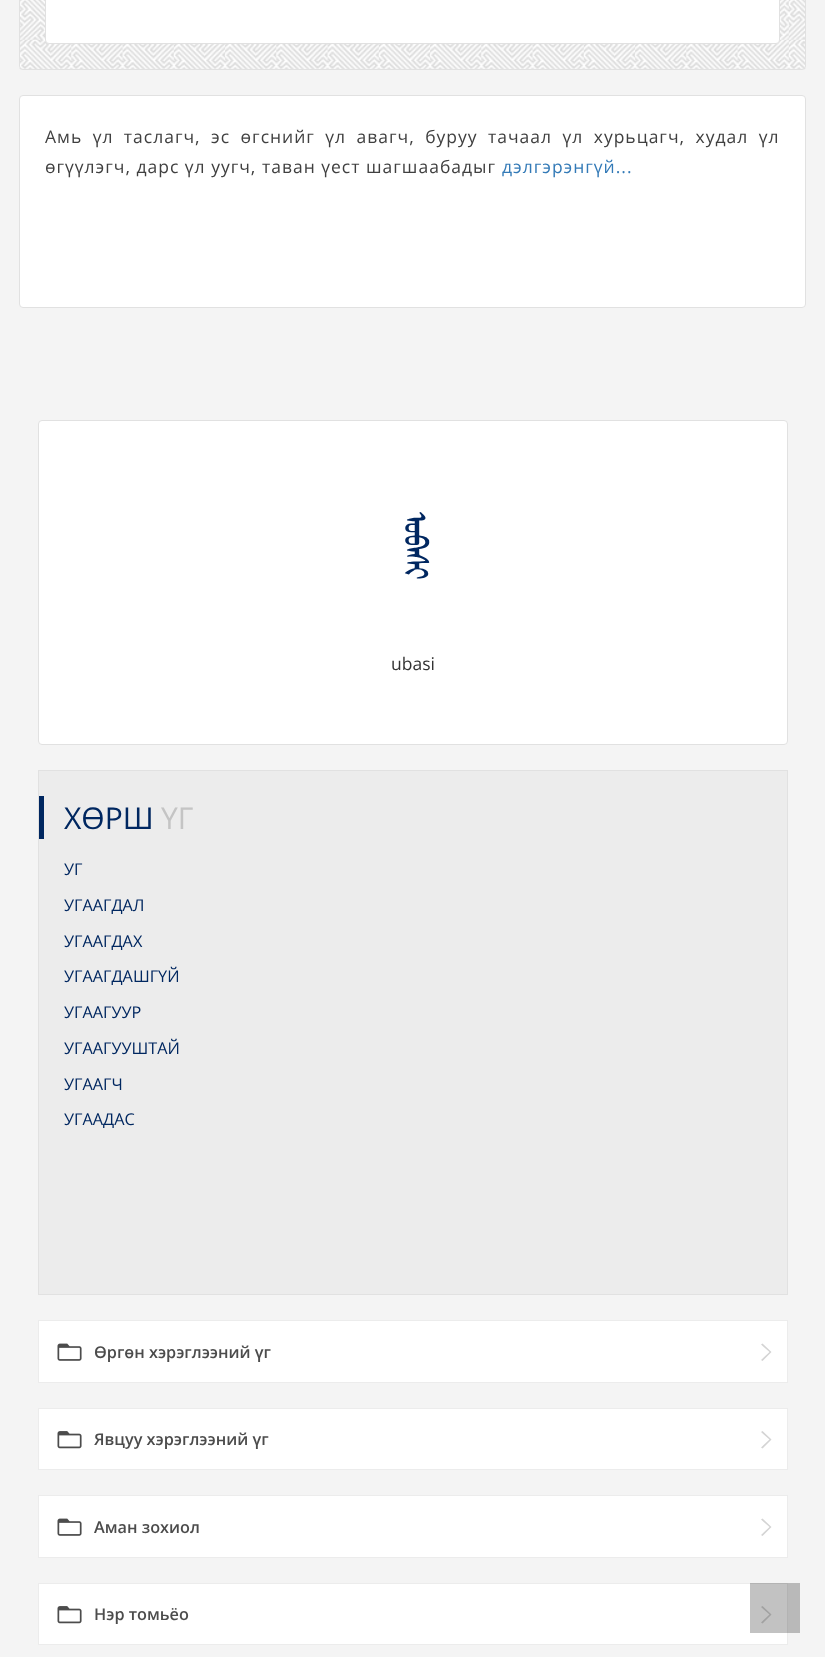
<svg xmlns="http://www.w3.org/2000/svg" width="825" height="1657">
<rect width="100%" height="100%" fill="#f4f4f4"/>
<image x="19" y="0" width="787" height="70" href="media/1.png"/>
<rect x="19.5" y="-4.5" width="786" height="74" rx="3.5" fill="none" stroke="#e1e1e1"/>
<rect x="45.5" y="-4.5" width="734" height="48" rx="3.5" fill="#fff" stroke="#e1e1e1"/>
<rect x="19.5" y="95.5" width="786" height="212" rx="3.5" fill="#fff" stroke="#e1e1e1"/>
<text x="45" y="143" word-spacing="4.9" style="font-family:Open Sans;font-size:17.5px;letter-spacing:1px;fill:#404040">Амь үл таслагч, эс өгснийг үл авагч, буруу тачаал үл хурьцагч, худал үл</text>
<text x="45" y="173" style="font-family:Open Sans;font-size:17.5px;letter-spacing:1px;fill:#404040">өгүүлэгч, дарс үл уугч, таван үест шагшаабадыг</text>
<text x="502" y="173" style="font-family:Open Sans;font-size:17.5px;letter-spacing:1px;fill:#337ab7">дэлгэрэнгүй...</text>
<rect x="38.5" y="420.5" width="749" height="324" rx="3.5" fill="#fff" stroke="#e1e1e1"/>
<text x="397" y="512" transform="rotate(90 397 512)" style="font-family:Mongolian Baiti;font-size:50px;fill:#002760">ᠤᠪᠠᠰᠢ</text>
<text x="391" y="670" style="font-family:Open Sans;font-size:17.5px;fill:#333">ubasi</text>
<rect x="38.5" y="770.5" width="749" height="524" fill="#ececec" stroke="#e1e1e1"/>
<rect x="39" y="796" width="5" height="43" fill="#002760"/>
<text x="64" y="829" style="font-family:Open Sans;font-size:30px;fill:#002760">ХӨРШ</text>
<text x="161" y="829" style="font-family:Open Sans;font-size:30px;fill:#c4c4c4">ҮГ</text>
<text x="64" y="875" style="font-family:Open Sans;font-size:16.25px;fill:#002760">УГ</text>
<text x="64" y="911" style="font-family:Open Sans;font-size:16.25px;fill:#002760">УГААГДАЛ</text>
<text x="64" y="947" style="font-family:Open Sans;font-size:16.25px;fill:#002760">УГААГДАХ</text>
<text x="64" y="982" style="font-family:Open Sans;font-size:16.25px;fill:#002760">УГААГДАШГҮЙ</text>
<text x="64" y="1018" style="font-family:Open Sans;font-size:16.25px;fill:#002760">УГААГУУР</text>
<text x="64" y="1054" style="font-family:Open Sans;font-size:16.25px;fill:#002760">УГААГУУШТАЙ</text>
<text x="64" y="1090" style="font-family:Open Sans;font-size:16.25px;fill:#002760">УГААГЧ</text>
<text x="64" y="1125" style="font-family:Open Sans;font-size:16.25px;fill:#002760">УГААДАС</text>
<rect x="38.5" y="1320.5" width="749" height="62" fill="#fff" stroke="#ececec"/>
<image x="57" y="1343" width="25" height="18" href="media/2.png"/>
<text x="94" y="1358" style="font-family:Open Sans;font-size:16.25px;font-weight:600;fill:#4c4c4c">Өргөн хэрэглээний үг</text>
<path d="M761 1344.5l1.5-1l9 8.5l-9 9l-1.5-1l8.5-8z" fill="#d4d4d4"/>
<rect x="38.5" y="1408.5" width="749" height="61" fill="#fff" stroke="#ececec"/>
<image x="57" y="1431" width="25" height="18" href="media/3.png"/>
<text x="94" y="1445" style="font-family:Open Sans;font-size:16.25px;font-weight:600;fill:#4c4c4c">Явцуу хэрэглээний үг</text>
<path d="M761 1432l1.5-1l9 8.5l-9 9l-1.5-1l8.5-8z" fill="#d4d4d4"/>
<rect x="38.5" y="1495.5" width="749" height="62" fill="#fff" stroke="#ececec"/>
<image x="57" y="1518" width="25" height="18" href="media/2.png"/>
<text x="94" y="1533" style="font-family:Open Sans;font-size:16.25px;font-weight:600;fill:#4c4c4c">Аман зохиол</text>
<path d="M761 1519.5l1.5-1l9 8.5l-9 9l-1.5-1l8.5-8z" fill="#d4d4d4"/>
<rect x="38.5" y="1583.5" width="749" height="61" fill="#fff" stroke="#ececec"/>
<image x="57" y="1606" width="25" height="18" href="media/3.png"/>
<text x="94" y="1620" style="font-family:Open Sans;font-size:16.25px;font-weight:600;fill:#4c4c4c">Нэр томьёо</text>
<path d="M761 1607l1.5-1l9 8.5l-9 9l-1.5-1l8.5-8z" fill="#d4d4d4"/>
<rect x="750" y="1583" width="50" height="50" fill="#0000003d"/>
</svg>
